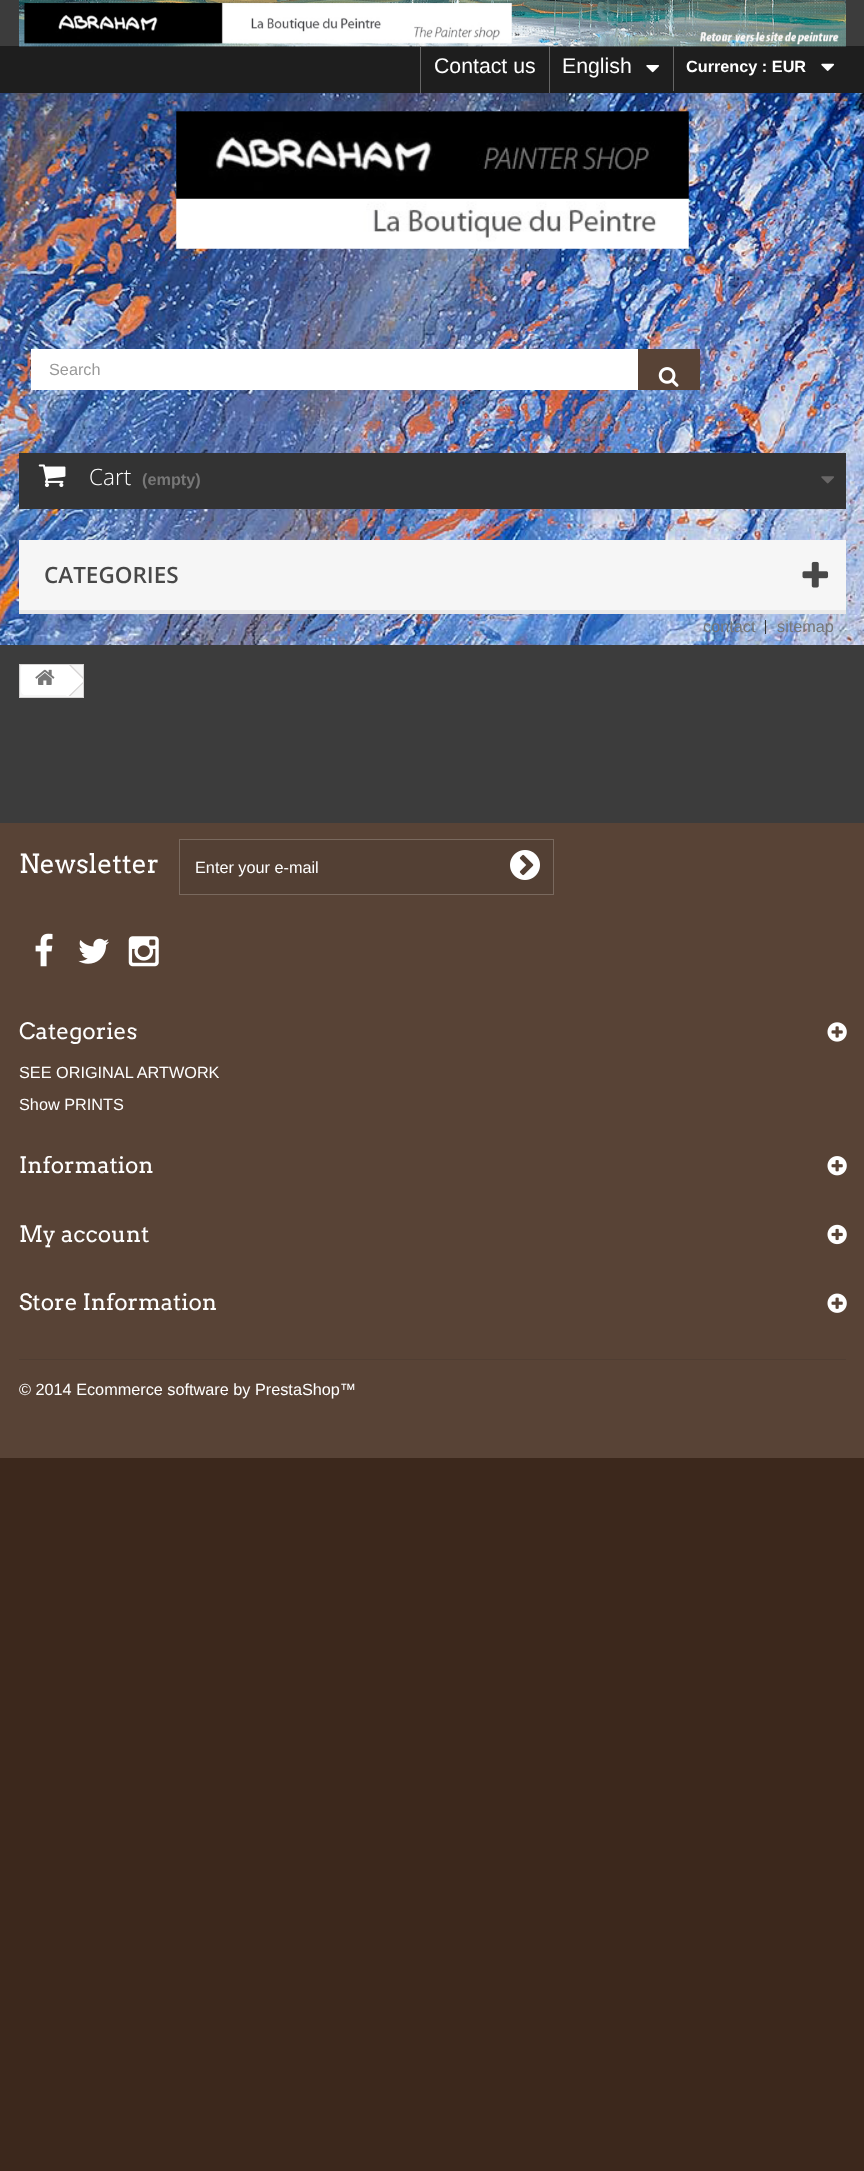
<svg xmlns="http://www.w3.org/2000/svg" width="864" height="2171">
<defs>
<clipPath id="clip1"><rect x="20" y="665" width="63" height="31"/></clipPath>
</defs>
<rect width="100%" height="100%" fill="#3c281c"/>
<image x="0" y="93" width="864" height="552" href="media/1.png"/>
<rect width="864" height="46" fill="#3c3c3c"/>
<rect y="46" width="864" height="47" fill="#1e1e1e"/>
<image x="19" y="0" width="827" height="47" href="media/2.png"/>
<rect x="420" y="46" width="1" height="47" fill="#656565"/>
<text x="434" y="73" style="font-family:Liberation Sans;font-size:21.25px;fill:#fff">Contact us</text>
<rect x="549" y="46" width="1" height="47" fill="#656565"/>
<text x="562" y="73" style="font-family:Liberation Sans;font-size:21.25px;fill:#fff">English</text>
<image x="646" y="65" width="14" height="8" href="media/3.png"/>
<rect x="673" y="46" width="1" height="45" fill="#656565"/>
<text x="686" y="72" style="font-family:Liberation Sans;font-size:16.25px;font-weight:bold;fill:#fff">Currency : EUR</text>
<image x="821" y="63" width="14" height="8" href="media/4.png"/>
<image x="176" y="111" width="513" height="138" href="media/5.png"/>
<rect x="31" y="349" width="607" height="41" fill="#fff"/>
<text x="49" y="375" style="font-family:Liberation Sans;font-size:16.25px;fill:#999">Search</text>
<rect x="638" y="349" width="62" height="41" fill="#584336"/>
<image x="658" y="367" width="21" height="20" href="media/6.png"/>
<rect x="19" y="453" width="827" height="56" fill="#333"/>
<image x="38" y="464" width="28" height="23" href="media/7.png"/>
<text x="89" y="485" style="font-family:Open Sans;font-size:22.5px;font-weight:300;fill:#fff">Cart</text>
<text x="142" y="485" style="font-family:Liberation Sans;font-size:16.25px;font-weight:bold;fill:#777">(empty)</text>
<image x="821" y="476" width="13" height="8" href="media/8.png"/>
<rect x="19" y="540" width="827" height="70" fill="#f6f6f6"/>
<rect x="19" y="610" width="827" height="4" fill="#e9e9e9"/>
<text x="44" y="583" style="font-family:Open Sans;font-size:22.5px;font-weight:600;fill:#484848">CATEGORIES</text>
<image x="802" y="561" width="27" height="27" href="media/9.png"/>
<text x="703" y="632" style="font-family:Liberation Sans;font-size:16.25px;fill:#777">contact</text>
<rect x="765" y="620" width="1" height="14" fill="#333"/>
<text x="777" y="632" style="font-family:Liberation Sans;font-size:16.25px;fill:#777">sitemap</text>
<rect y="645" width="864" height="178" fill="#3c3c3c"/>
<rect x="19.5" y="664.5" width="64" height="33" fill="#f6f6f6" stroke="#d6d4d4"/>
<g clip-path="url(#clip1)">
<path d="M25 664h44v31h-44c-2 0-4-2-4-4v-23c0-2 2-4 4-4z" fill="#fff"/>
<path d="M70.5 664.5l14 14c1 1 1 2.5 0 3.5l-14 14c-1 1-2.5 1-3.5 0l-14-14c-1-1-1-2.5 0-3.5l14-14c1-1 2.5-1 3.5 0z" fill="#fff"/>
</g>
<image x="35" y="669" width="20" height="16" href="media/10.png"/>
<g clip-path="url(#clip1)">
<path d="M69.5 663.5l16 16l-1 1l-16-16zm15 17l1 .5l-16 16l-1-1z" fill="#d6d4d4"/>
</g>
<rect y="823" width="864" height="635" fill="#584336"/>
<text x="19" y="873" style="font-family:Arvo;font-size:26.25px;fill:#fff">Newsletter</text>
<rect x="179.5" y="839.5" width="374" height="55" fill="#534034" stroke="#79695e"/>
<text x="195" y="873" style="font-family:Liberation Sans;font-size:16.25px;fill:#fff">Enter your e-mail</text>
<image x="510" y="850" width="30" height="30" href="media/11.png"/>
<image x="35" y="933" width="18" height="34" href="media/12.png"/>
<image x="78" y="938" width="31" height="26" href="media/13.png"/>
<image x="128" y="936" width="31" height="31" href="media/14.png"/>
<text x="19" y="1039" style="font-family:Arvo;font-size:22.5px;fill:#fff">Categories</text>
<image x="827" y="1022" width="20" height="20" href="media/15.png"/>
<text x="19" y="1078" style="font-family:Liberation Sans;font-size:16.25px;fill:#fff">SEE ORIGINAL ARTWORK</text>
<text x="19" y="1110" style="font-family:Liberation Sans;font-size:16.25px;fill:#fff">Show PRINTS</text>
<text x="19" y="1173" style="font-family:Arvo;font-size:22.5px;fill:#fff">Information</text>
<image x="827" y="1156" width="20" height="20" href="media/16.png"/>
<text x="19" y="1242" style="font-family:Arvo;font-size:22.5px;fill:#fff">My account</text>
<image x="827" y="1224" width="20" height="21" href="media/17.png"/>
<text x="19" y="1310" style="font-family:Arvo;font-size:22.5px;fill:#fff">Store Information</text>
<image x="827" y="1293" width="20" height="20" href="media/18.png"/>
<rect x="19" y="1359" width="827" height="1" fill="#503e33"/>
<text x="19" y="1395" style="font-family:Liberation Sans;font-size:16.25px;fill:#fff">© 2014 Ecommerce software by PrestaShop™</text>
</svg>
